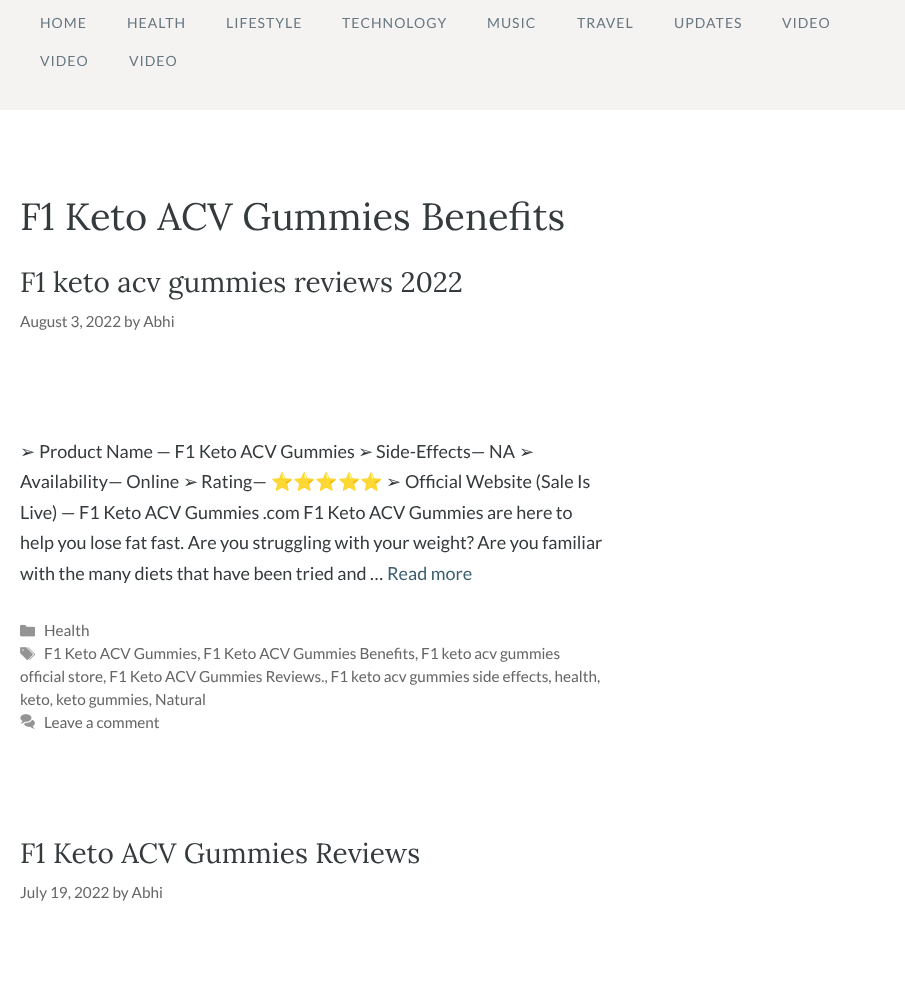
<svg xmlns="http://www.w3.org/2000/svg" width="905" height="981">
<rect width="100%" height="100%" fill="#fff"/>
<rect width="905" height="110" fill="#f5f3f2"/>
<text x="40" y="28" style="font-family:Lato;font-size:14px;letter-spacing:1px;fill:#667780">HOME</text>
<text x="127" y="28" style="font-family:Lato;font-size:14px;letter-spacing:1px;fill:#667780">HEALTH</text>
<text x="226" y="28" style="font-family:Lato;font-size:14px;letter-spacing:1px;fill:#667780">LIFESTYLE</text>
<text x="342" y="28" style="font-family:Lato;font-size:14px;letter-spacing:1px;fill:#667780">TECHNOLOGY</text>
<text x="487" y="28" style="font-family:Lato;font-size:14px;letter-spacing:1px;fill:#667780">MUSIC</text>
<text x="577" y="28" style="font-family:Lato;font-size:14px;letter-spacing:1px;fill:#667780">TRAVEL</text>
<text x="674" y="28" style="font-family:Lato;font-size:14px;letter-spacing:1px;fill:#667780">UPDATES</text>
<text x="782" y="28" style="font-family:Lato;font-size:14px;letter-spacing:1px;fill:#667780">VIDEO</text>
<text x="40" y="66" style="font-family:Lato;font-size:14px;letter-spacing:1px;fill:#667780">VIDEO</text>
<text x="129" y="66" style="font-family:Lato;font-size:14px;letter-spacing:1px;fill:#667780">VIDEO</text>
<text x="20" y="230" style="font-family:Lora;font-size:38px;fill:#353a3d">F1 Keto ACV Gummies Benefits</text>
<text x="20" y="292" style="font-family:Lora;font-size:28px;fill:#353a3d">F1 keto acv gummies reviews 2022</text>
<text x="20" y="327" style="font-family:Lato;font-size:15.3px;fill:#666">August 3, 2022 by Abhi</text>
<text x="20" y="458" style="font-family:DejaVu Sans;font-size:18px;fill:#353a3d">➢</text>
<text x="39" y="458" style="font-family:Lato;font-size:18px;fill:#353a3d">Product Name — F1 Keto ACV Gummies</text>
<text x="358" y="458" style="font-family:DejaVu Sans;font-size:18px;fill:#353a3d">➢</text>
<text x="376" y="458" style="font-family:Lato;font-size:18px;fill:#353a3d">Side-Effects— NA</text>
<text x="519" y="458" style="font-family:DejaVu Sans;font-size:18px;fill:#353a3d">➢</text>
<text x="20" y="488" style="font-family:Lato;font-size:18px;fill:#353a3d">Availability— Online</text>
<text x="183" y="488" style="font-family:DejaVu Sans;font-size:18px;fill:#353a3d">➢</text>
<text x="201" y="488" style="font-family:Lato;font-size:18px;fill:#353a3d">Rating—</text>
<text x="271" y="488" style="font-family:Noto Color Emoji;font-size:18px;fill:#353a3d">⭐⭐⭐⭐⭐</text>
<text x="386" y="488" style="font-family:DejaVu Sans;font-size:18px;fill:#353a3d">➢</text>
<text x="405" y="488" style="font-family:Lato;font-size:18px;fill:#353a3d">Official Website (Sale Is</text>
<text x="20" y="519" style="font-family:Lato;font-size:18px;fill:#353a3d">Live) — F1 Keto ACV Gummies .com F1 Keto ACV Gummies are here to</text>
<text x="20" y="549" style="font-family:Lato;font-size:18px;fill:#353a3d">help you lose fat fast. Are you struggling with your weight? Are you familiar</text>
<text x="20" y="580" style="font-family:Lato;font-size:18px;fill:#353a3d">with the many diets that have been tried and …</text>
<text x="387" y="580" style="font-family:Lato;font-size:18px;fill:#3a606e">Read more</text>
<image x="20" y="624" width="15" height="13" href="media/1.png"/>
<text x="44" y="636" style="font-family:Lato;font-size:15.3px;fill:#666">Health</text>
<image x="20" y="647" width="15" height="13" href="media/2.png"/>
<text x="44" y="659" style="font-family:Lato;font-size:15.3px;fill:#666">F1 Keto ACV Gummies, F1 Keto ACV Gummies Benefits, F1 keto acv gummies</text>
<text x="20" y="682" style="font-family:Lato;font-size:15.3px;fill:#666">official store, F1 Keto ACV Gummies Reviews., F1 keto acv gummies side effects, health,</text>
<text x="20" y="705" style="font-family:Lato;font-size:15.3px;fill:#666">keto, keto gummies, Natural</text>
<image x="20" y="714" width="15" height="15" href="media/3.png"/>
<text x="44" y="728" style="font-family:Lato;font-size:15.3px;fill:#666">Leave a comment</text>
<text x="20" y="863" style="font-family:Lora;font-size:28px;fill:#353a3d">F1 Keto ACV Gummies Reviews</text>
<text x="20" y="898" style="font-family:Lato;font-size:15.3px;fill:#666">July 19, 2022 by Abhi</text>
</svg>
